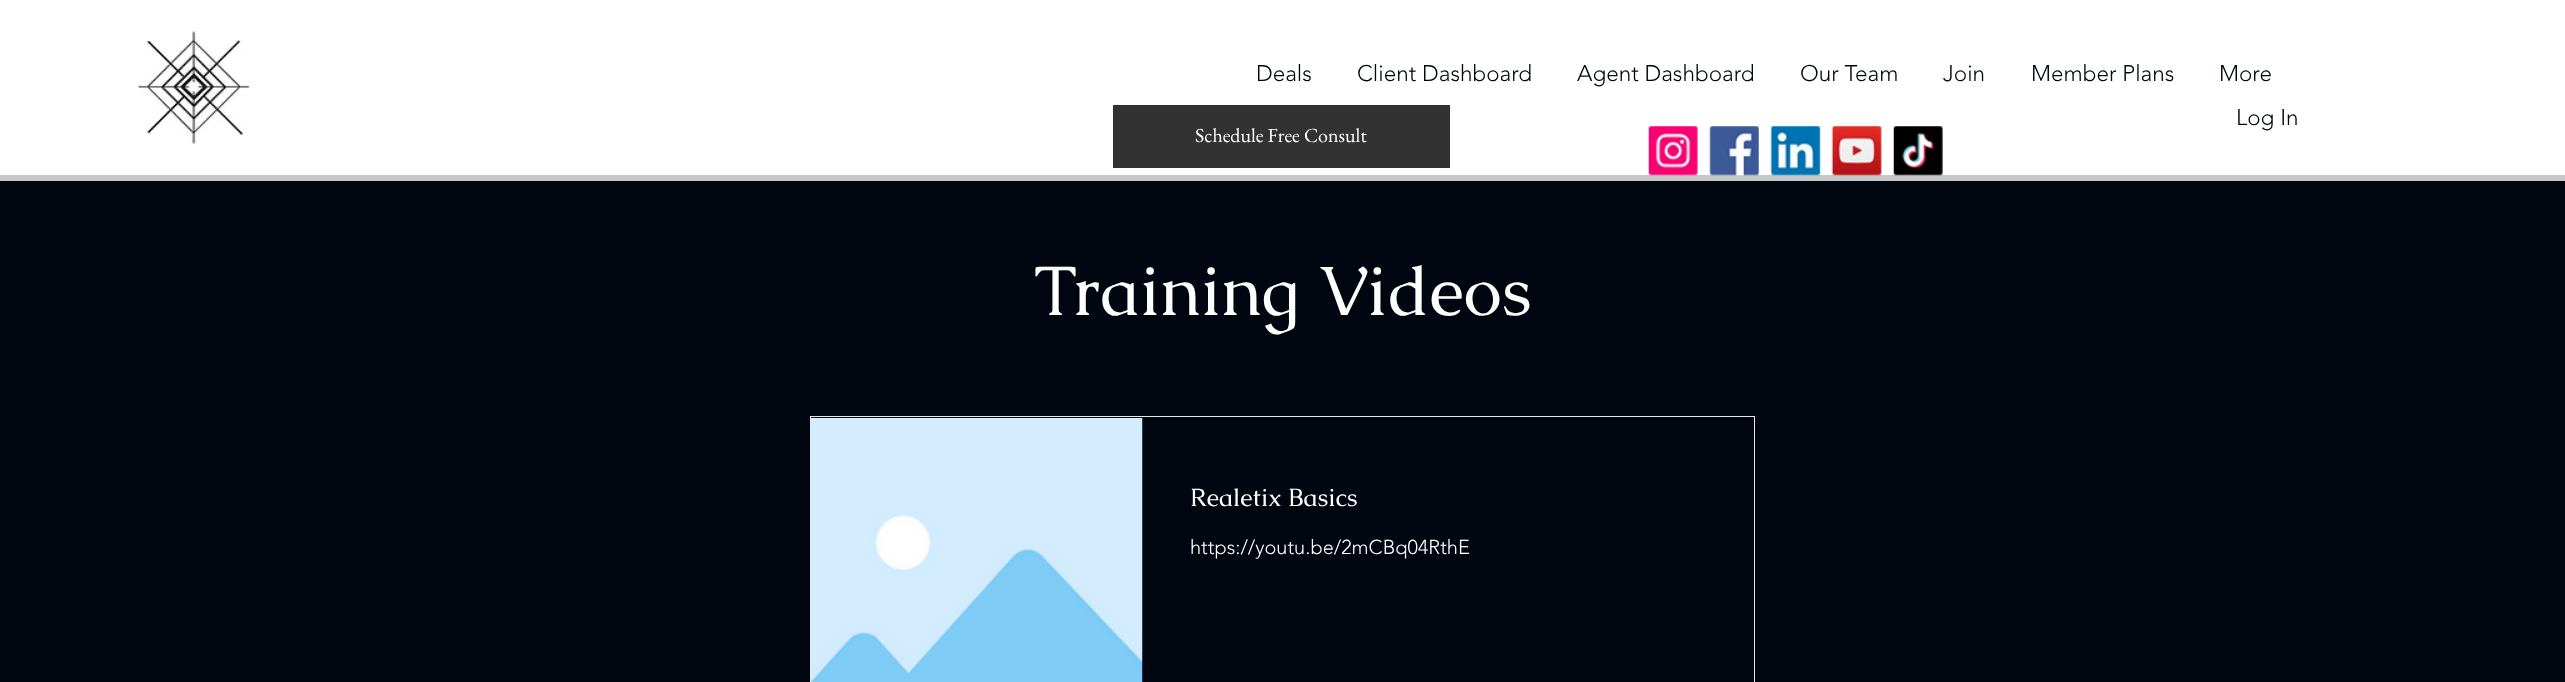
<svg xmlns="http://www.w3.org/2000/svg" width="2565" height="682">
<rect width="100%" height="100%" fill="#00060f"/>
<rect width="2565" height="175" fill="#fff"/>
<image x="136" y="31" width="114" height="113" href="media/1.png"/>
<text x="1256" y="81" style="font-family:'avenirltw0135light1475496';font-size:22.5px;font-weight:300;fill:#00060f">Deals</text>
<text x="1357" y="81" style="font-family:'avenirltw0135light1475496';font-size:22.5px;font-weight:300;fill:#00060f">Client Dashboard</text>
<text x="1577" y="81" style="font-family:'avenirltw0135light1475496';font-size:22.5px;font-weight:300;fill:#00060f">Agent Dashboard</text>
<text x="1800" y="81" style="font-family:'avenirltw0135light1475496';font-size:22.5px;font-weight:300;fill:#00060f">Our Team</text>
<text x="1943" y="81" style="font-family:'avenirltw0135light1475496';font-size:22.5px;font-weight:300;fill:#00060f">Join</text>
<text x="2031" y="81" style="font-family:'avenirltw0135light1475496';font-size:22.5px;font-weight:300;fill:#00060f">Member Plans</text>
<text x="2219" y="81" style="font-family:'avenirltw0135light1475496';font-size:22.5px;font-weight:300;fill:#00060f">More</text>
<text x="2236" y="125" style="font-family:'avenirltw0135light1475496';font-size:22.5px;font-weight:300;fill:#00060f">Log In</text>
<rect x="1113" y="105" width="337" height="63" fill="#323232"/>
<text x="1195" y="142" style="font-family:EB Garamond;font-size:20px;fill:#fff">Schedule Free Consult</text>
<rect y="175" width="2565" height="6" fill="#c7c7c7"/>
<image x="1648" y="126" width="50" height="50" href="media/2.png"/>
<image x="1709" y="126" width="50" height="50" href="media/3.png"/>
<image x="1770" y="126" width="51" height="50" href="media/4.png"/>
<image x="1831" y="126" width="51" height="50" href="media/5.png"/>
<image x="1893" y="126" width="50" height="50" href="media/6.png"/>
<text x="1034" y="315" style="font-family:Caudex;font-size:70px;fill:#fff">Training Videos</text>
<rect x="810.5" y="416.5" width="944" height="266" fill="none" stroke="#e8e6e6"/>
<image x="811" y="418" width="332" height="264" href="media/7.png"/>
<text x="1190" y="506" style="font-family:Caudex;font-size:25px;fill:#fff">Realetix Basics</text>
<text x="1190" y="554" style="font-family:'avenirltw0135light1475496';font-size:20px;font-weight:300;fill:#fff">https://youtu.be/2mCBq04RthE</text>
</svg>
